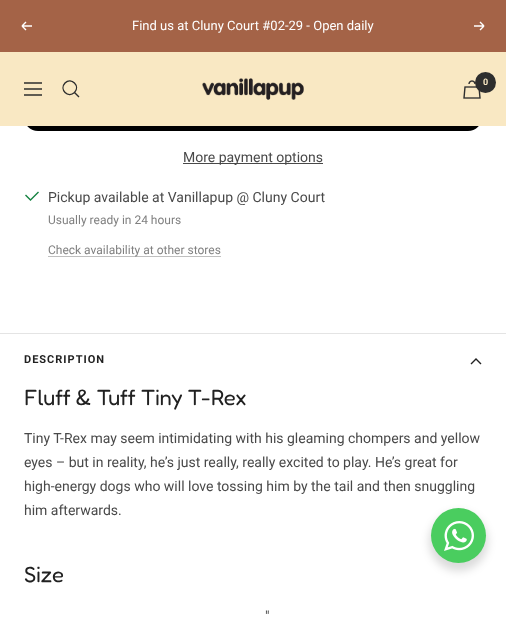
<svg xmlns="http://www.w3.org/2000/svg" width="506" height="618">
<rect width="100%" height="100%" fill="#fff"/>
<rect width="506" height="52" fill="#a46347"/>
<path d="M32 26h-10m0 0l4 4m-4-4l4-4" fill="none" stroke="#fff" stroke-width="1.4"/>
<text x="132" y="30" style="font-family:Roboto;font-size:13px;fill:#fff">Find us at Cluny Court #02-29 - Open daily</text>
<path d="M474 26h10m0 0l-4 4m4-4l-4-4" fill="none" stroke="#fff" stroke-width="1.4"/>
<rect x="24" y="83" width="458" height="48" rx="14" fill="#000"/>
<rect y="52" width="506" height="74" fill="#f9e8c3"/>
<path d="M24 83h18m-18 12h18zm0-6h18zm50.5 3.5c6-6.5-3-15.5-9.5-9.5c-6 6.5 3 15.5 9.5 9.5zm0 0l4.5 4.5" fill="none" stroke="#2e2e2e" stroke-width="1.4"/>
<image x="202" y="78" width="102" height="22" href="media/1.png"/>
<image x="463" y="80" width="18" height="19" href="media/2.png"/>
<circle cx="485.5" cy="82.5" r="10.5" fill="#2e2e2e"/>
<text x="483" y="85" style="font-family:Roboto;font-size:9px;font-weight:bold;fill:#f9e8c3">0</text>
<rect x="183" y="163" width="140" height="1" fill="#494949"/>
<text x="183" y="162" style="font-family:Roboto;font-size:14px;fill:#494949">More payment options</text>
<path d="M25.5 195l5 5l8-8" fill="none" stroke="#168342" stroke-width="1.4"/>
<text x="48" y="202" style="font-family:Roboto;font-size:14px;fill:#494949">Pickup available at Vanillapup @ Cluny Court</text>
<text x="48" y="224" style="font-family:Roboto;font-size:12px;fill:#808080">Usually ready in 24 hours</text>
<rect x="48" y="256" width="173" height="1" fill="#bfbfbf"/>
<text x="48" y="254" style="font-family:Roboto;font-size:12px;fill:#808080">Check availability at other stores</text>
<rect y="333" width="506" height="1" fill="#e4e4e4"/>
<text x="24" y="363" style="font-family:Roboto;font-size:11px;font-weight:bold;letter-spacing:1px;fill:#212121">DESCRIPTION</text>
<path d="M481 364l-5-5l-5 5" fill="none" stroke="#212121" stroke-width="1.4"/>
<text x="24" y="405" style="font-family:Fredoka;font-size:22px;letter-spacing:-0.3px;fill:#212121">Fluff &amp; Tuff Tiny T-Rex</text>
<text x="24" y="443" style="font-family:Roboto;font-size:14px;fill:#494949">Tiny T-Rex may seem intimidating with his gleaming chompers and yellow</text>
<text x="24" y="467" style="font-family:Roboto;font-size:14px;fill:#494949">eyes – but in reality, he’s just really, really excited to play. He’s great for</text>
<text x="24" y="491" style="font-family:Roboto;font-size:14px;fill:#494949">high-energy dogs who will love tossing him by the tail and then snuggling</text>
<text x="24" y="515" style="font-family:Roboto;font-size:14px;fill:#494949">him afterwards.</text>
<text x="24" y="582" style="font-family:Fredoka;font-size:22px;letter-spacing:-0.3px;fill:#212121">Size</text>
<text x="265" y="621" style="font-family:Roboto;font-size:14px;fill:#494949">"</text>
<rect x="429" y="512" width="59" height="59" rx="29.5" fill="#00000024" filter="blur(4px)"/>
<circle cx="458.5" cy="535.5" r="27.5" fill="#4acd5f"/>
<image x="444" y="521" width="30" height="30" href="media/3.png"/>
</svg>
